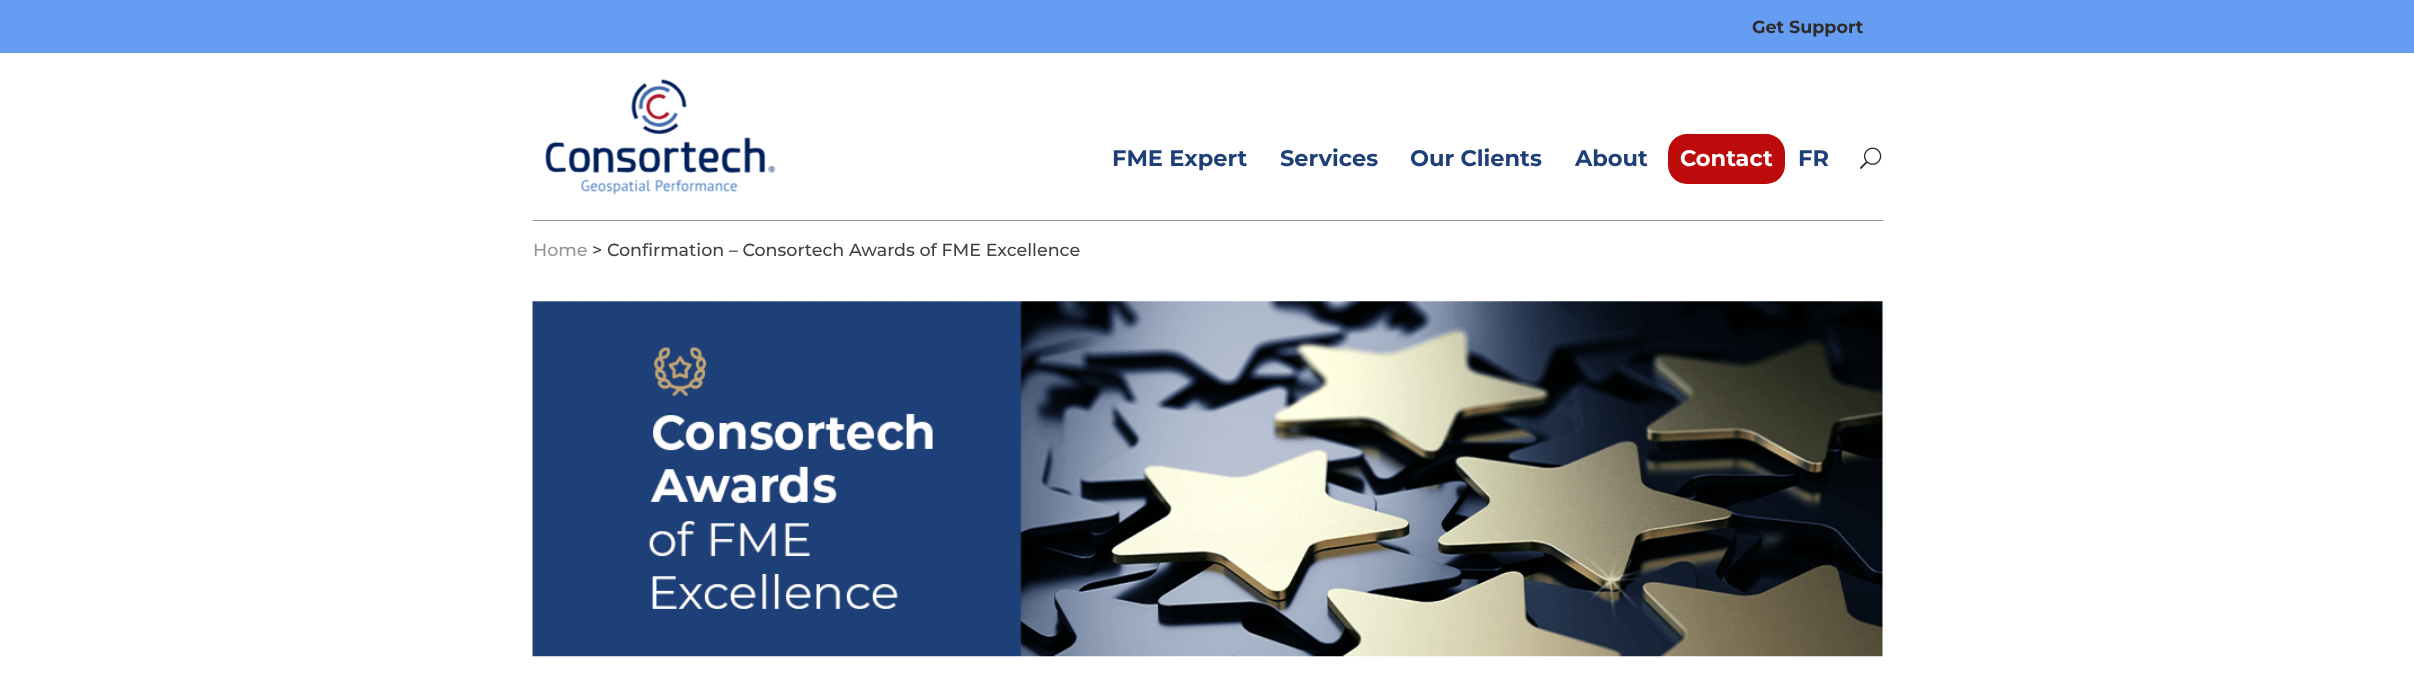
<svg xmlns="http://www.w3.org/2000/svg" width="2414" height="675">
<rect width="100%" height="100%" fill="#fff"/>
<rect width="2414" height="53" fill="#659df2"/>
<text x="1752" y="33" style="font-family:Montserrat;font-size:17.5px;font-weight:bold;fill:#2c2c2c">Get Support</text>
<rect x="533" y="220" width="1350" height="1" fill="#95989a"/>
<image x="545" y="79" width="231" height="116" href="media/1.png"/>
<text x="1112" y="166" style="font-family:Montserrat;font-size:22.5px;font-weight:bold;fill:#1f3f79">FME Expert</text>
<text x="1280" y="166" style="font-family:Montserrat;font-size:22.5px;font-weight:bold;fill:#1f3f79">Services</text>
<text x="1410" y="166" style="font-family:Montserrat;font-size:22.5px;font-weight:bold;fill:#1f3f79">Our Clients</text>
<text x="1575" y="166" style="font-family:Montserrat;font-size:22.5px;font-weight:bold;fill:#1f3f79">About</text>
<rect x="1668" y="134" width="117" height="50" rx="19" fill="#bd0a0a"/>
<text x="1680" y="166" style="font-family:Montserrat;font-size:22.5px;font-weight:bold;fill:#fff">Contact</text>
<text x="1798" y="166" style="font-family:Montserrat;font-size:22.5px;font-weight:bold;fill:#1f3f79">FR</text>
<image x="1860" y="147" width="22" height="22" href="media/2.png"/>
<text x="533" y="256" style="font-family:Montserrat;font-size:17.5px;font-weight:500;fill:#959595">Home</text>
<text x="592" y="256" style="font-family:Montserrat;font-size:17.5px;font-weight:500;fill:#404040">&gt; Confirmation – Consortech Awards of FME Excellence</text>
<image x="532" y="301" width="1351" height="356" href="media/3.png"/>
</svg>
